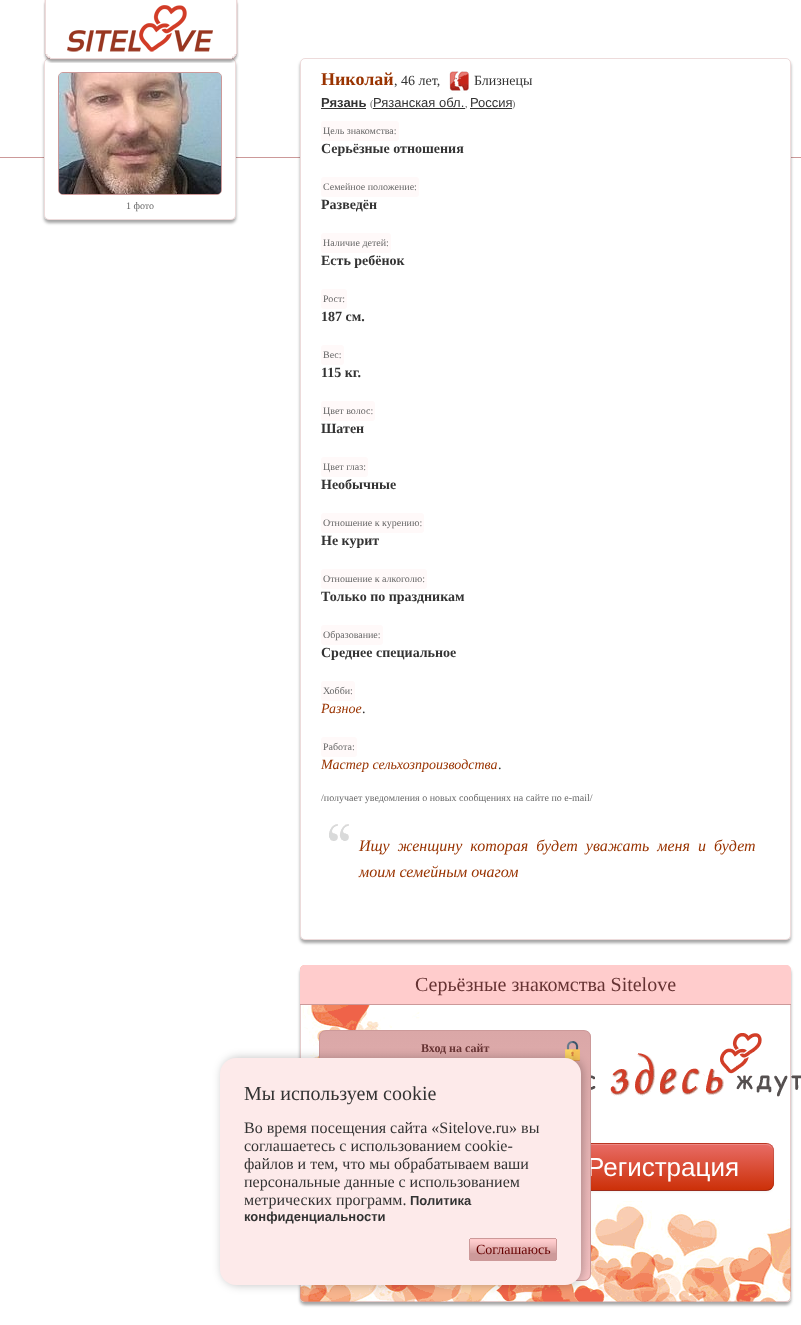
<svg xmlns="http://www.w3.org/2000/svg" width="801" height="1325">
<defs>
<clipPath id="clip1"><path d="M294 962h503v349h-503zm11 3h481c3 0 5 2 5 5v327c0 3-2 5-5 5h-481c-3 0-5-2-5-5v-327c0-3 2-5 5-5z" clip-rule="evenodd"/></clipPath>
<clipPath id="clip2"><rect x="552" y="1143" width="222" height="48" rx="8"/></clipPath>
<linearGradient id="g1" gradientUnits="userSpaceOnUse" x1="663" y1="1144" x2="663" y2="1190"><stop offset="0" stop-color="#e86c66"/><stop offset="1" stop-color="#cc3008"/></linearGradient>
<clipPath id="clip3"><rect x="319" y="1030" width="272" height="251" rx="7"/></clipPath>
<linearGradient id="g2" gradientUnits="userSpaceOnUse" x1="455" y1="1031" x2="455" y2="1280"><stop offset="0" stop-color="#daa7a7"/><stop offset="1" stop-color="#f5c2c3"/></linearGradient>
</defs>
<rect width="100%" height="100%" fill="#fff"/>
<rect y="157" width="801" height="1" fill="#c99"/>
<rect x="44" y="61" width="192" height="162" rx="5" fill="#00000059" filter="blur(1.5px)"/>
<rect x="44" y="58" width="192" height="162" rx="5" fill="#fff"/>
<rect x="44.5" y="58.5" width="191" height="161" rx="4.5" fill="none" stroke="#cc999959"/>
<image x="43" y="0" width="196" height="63" href="media/1.png"/>
<image x="59" y="73" width="162" height="121" href="media/2.png"/>
<rect x="58.5" y="72.5" width="163" height="122" rx="4.5" fill="none" stroke="#c99"/>
<image x="59" y="73" width="162" height="121" href="media/3.png"/>
<text x="126" y="209" style="font-family:Liberation Serif;font-size:10px;fill:#666">1 фото</text>
<rect x="300" y="61" width="491" height="882" rx="5" fill="#00000059" filter="blur(1.5px)"/>
<rect x="300" y="58" width="491" height="882" rx="5" fill="#fff"/>
<rect x="300.5" y="58.5" width="490" height="881" rx="4.5" fill="none" stroke="#cc999959"/>
<text x="321" y="85" style="font-family:Liberation Serif;font-size:18px;font-weight:bold;fill:#930">Николай</text>
<text x="394" y="85" style="font-family:Liberation Serif;font-size:14px;fill:#333">, 46 лет,</text>
<image x="449" y="71" width="21" height="22" href="media/4.png"/>
<text x="474" y="85" style="font-family:Liberation Serif;font-size:14px;fill:#333">Близнецы</text>
<text x="321" y="107" style="font-family:Liberation Sans;font-size:13px;font-weight:bold;fill:#333">Рязань</text>
<rect x="321" y="108" width="45" height="1" fill="#333"/>
<text x="370" y="107" style="font-family:Liberation Serif;font-size:10px;fill:#666">(</text>
<text x="373" y="107" style="font-family:Liberation Sans;font-size:13px;fill:#333">Рязанская обл.</text>
<rect x="373" y="108" width="92" height="1" fill="#333"/>
<text x="465" y="107" style="font-family:Liberation Serif;font-size:10px;fill:#666">,</text>
<rect x="470" y="108" width="42" height="1" fill="#333"/>
<text x="470" y="107" style="font-family:Liberation Sans;font-size:13px;fill:#333">Россия</text>
<text x="512" y="107" style="font-family:Liberation Serif;font-size:10px;fill:#666">)</text>
<rect x="321" y="121" width="78" height="20" rx="3" fill="#fff9f9"/>
<text x="323" y="134" style="font-family:Liberation Serif;font-size:10px;fill:#666">Цель знакомства:</text>
<text x="321" y="153" style="font-family:Liberation Serif;font-size:14px;font-weight:bold;fill:#333">Серьёзные отношения</text>
<rect x="321" y="177" width="98" height="20" rx="3" fill="#fff9f9"/>
<text x="323" y="190" style="font-family:Liberation Serif;font-size:10px;fill:#666">Семейное положение:</text>
<text x="321" y="209" style="font-family:Liberation Serif;font-size:14px;font-weight:bold;fill:#333">Разведён</text>
<rect x="321" y="233" width="70" height="20" rx="3" fill="#fff9f9"/>
<text x="323" y="246" style="font-family:Liberation Serif;font-size:10px;fill:#666">Наличие детей:</text>
<text x="321" y="265" style="font-family:Liberation Serif;font-size:14px;font-weight:bold;fill:#333">Есть ребёнок</text>
<rect x="321" y="289" width="26" height="20" rx="3" fill="#fff9f9"/>
<text x="323" y="302" style="font-family:Liberation Serif;font-size:10px;fill:#666">Рост:</text>
<text x="321" y="321" style="font-family:Liberation Serif;font-size:14px;font-weight:bold;fill:#333">187 см.</text>
<rect x="321" y="345" width="23" height="20" rx="3" fill="#fff9f9"/>
<text x="323" y="358" style="font-family:Liberation Serif;font-size:10px;fill:#666">Вес:</text>
<text x="321" y="377" style="font-family:Liberation Serif;font-size:14px;font-weight:bold;fill:#333">115 кг.</text>
<rect x="321" y="401" width="54" height="20" rx="3" fill="#fff9f9"/>
<text x="323" y="414" style="font-family:Liberation Serif;font-size:10px;fill:#666">Цвет волос:</text>
<text x="321" y="433" style="font-family:Liberation Serif;font-size:14px;font-weight:bold;fill:#333">Шатен</text>
<rect x="321" y="457" width="47" height="20" rx="3" fill="#fff9f9"/>
<text x="323" y="470" style="font-family:Liberation Serif;font-size:10px;fill:#666">Цвет глаз:</text>
<text x="321" y="489" style="font-family:Liberation Serif;font-size:14px;font-weight:bold;fill:#333">Необычные</text>
<rect x="321" y="513" width="103" height="20" rx="3" fill="#fff9f9"/>
<text x="323" y="526" style="font-family:Liberation Serif;font-size:10px;fill:#666">Отношение к курению:</text>
<text x="321" y="545" style="font-family:Liberation Serif;font-size:14px;font-weight:bold;fill:#333">Не курит</text>
<rect x="321" y="569" width="106" height="20" rx="3" fill="#fff9f9"/>
<text x="323" y="582" style="font-family:Liberation Serif;font-size:10px;fill:#666">Отношение к алкоголю:</text>
<text x="321" y="601" style="font-family:Liberation Serif;font-size:14px;font-weight:bold;fill:#333">Только по праздникам</text>
<rect x="321" y="625" width="62" height="20" rx="3" fill="#fff9f9"/>
<text x="323" y="638" style="font-family:Liberation Serif;font-size:10px;fill:#666">Образование:</text>
<text x="321" y="657" style="font-family:Liberation Serif;font-size:14px;font-weight:bold;fill:#333">Среднее специальное</text>
<rect x="321" y="681" width="34" height="20" rx="3" fill="#fff9f9"/>
<text x="323" y="694" style="font-family:Liberation Serif;font-size:10px;fill:#666">Хобби:</text>
<text x="321" y="713" style="font-family:Liberation Serif;font-size:14px;font-style:italic;fill:#930">Разное</text>
<text x="362" y="713" style="font-family:Liberation Serif;font-size:14px;fill:#333">.</text>
<rect x="321" y="737" width="36" height="20" rx="3" fill="#fff9f9"/>
<text x="323" y="750" style="font-family:Liberation Serif;font-size:10px;fill:#666">Работа:</text>
<text x="321" y="769" style="font-family:Liberation Serif;font-size:14px;font-style:italic;fill:#930">Мастер сельхозпроизводства</text>
<text x="498" y="769" style="font-family:Liberation Serif;font-size:14px;fill:#333">.</text>
<text x="321" y="801" style="font-family:Liberation Serif;font-size:10px;fill:#666">/получает уведомления о новых сообщениях на сайте по e-mail/</text>
<image x="329" y="824" width="20" height="17" href="media/5.png"/>
<text x="359" y="851" word-spacing="4" style="font-family:Liberation Serif;font-size:16px;font-style:italic;fill:#930">Ищу женщину которая будет уважать меня и будет</text>
<text x="359" y="877" style="font-family:Liberation Serif;font-size:16px;font-style:italic;fill:#930">моим семейным очагом</text>
<image x="300" y="965" width="491" height="337" href="media/7.png"/>
<g clip-path="url(#clip1)">
<rect x="300" y="968" width="491" height="337" rx="5" fill="#00000059" filter="blur(1.5px)"/>
</g>
<rect x="300.5" y="965.5" width="490" height="336" rx="4.5" fill="none" stroke="#cc999980"/>
<rect x="552" y="1144" width="222" height="48" rx="8" fill="#0000000d" filter="blur(1px)"/>
<rect x="552" y="1143" width="222" height="48" rx="8" fill="#d13d27"/>
<g clip-path="url(#clip2)">
<rect x="591" y="1144" width="183" height="46" fill="url(#g1)"/>
</g>
<path d="M560 1145h206c4 0 7 3 7 7c0-4-2-7-6-8h-207c-5 0-7 4-7 8c0-4 3-7 7-7z" fill="#ffffff33"/>
<path d="M771.5 1188.5c-1.5 1-3.5 2-5.5 2h-206c-2 0-4-1-5.5-2" fill="none" stroke="#00000040"/>
<path d="M554.5 1188.5c-1-1.5-2-3.5-2-5.5v-32c0-2 1-4 2-5.5c1.5-1 3.5-2 5.5-2h206c2 0 4 1 5.5 2c1 1.5 2 3.5 2 5.5v32c0 2-1 4-2 5.5" fill="none" stroke="#0000001a"/>
<text x="587" y="1176" style="font-family:Liberation Sans;font-size:26px;fill:#fff">Регистрация</text>
<g clip-path="url(#clip3)">
<rect x="319" y="1031" width="272" height="249" fill="url(#g2)"/>
</g>
<rect x="319.5" y="1030.5" width="271" height="250" rx="6.5" fill="none" stroke="#c99"/>
<image x="565" y="1041" width="15" height="20" href="media/8.png"/>
<image x="591" y="1033" width="210" height="64" href="media/9.png"/>
<rect x="222" y="1058" width="361" height="227" rx="16" fill="#00000040" filter="blur(5px)"/>
<rect x="220" y="1058" width="361" height="227" rx="16" fill="#fdeaea"/>
<text x="244" y="1100" style="font-family:Liberation Serif;font-size:20px;fill:#333">Мы используем сookie</text>
<text x="244" y="1133" style="font-family:Liberation Serif;font-size:16px;fill:#333">Во время посещения сайта «Sitelove.ru» вы</text>
<text x="244" y="1151" style="font-family:Liberation Serif;font-size:16px;fill:#333">соглашаетесь с использованием cookie-</text>
<text x="244" y="1169" style="font-family:Liberation Serif;font-size:16px;fill:#333">файлов и тем, что мы обрабатываем ваши</text>
<text x="244" y="1187" style="font-family:Liberation Serif;font-size:16px;fill:#333">персональные данные с использованием</text>
<text x="244" y="1205" style="font-family:Liberation Serif;font-size:16px;fill:#333">метрических программ.</text>
<text x="410" y="1205" style="font-family:Liberation Sans;font-size:13px;font-weight:bold;fill:#333">Политика</text>
<text x="244" y="1221" style="font-family:Liberation Sans;font-size:13px;font-weight:bold;fill:#333">конфиденциальности</text>
<image x="470" y="1238" width="86" height="15" href="media/6.png"/>
<rect x="470" y="1253" width="86" height="7" fill="#cd9a9a"/>
<text x="476" y="1254" style="font-family:Liberation Serif;font-size:14px;fill:#600">Соглашаюсь</text>
<rect x="556" y="1239" width="1" height="21" fill="#c99"/>
<rect x="469" y="1239" width="1" height="21" fill="#c99"/>
<rect x="470" y="1260" width="86" height="1" fill="#c99"/>
<path d="M305 965h481c3 0 5 2 5 5v35h-491v-35c0-3 2-5 5-5z" fill="#fcc"/>
<rect x="300" y="1004" width="491" height="1" fill="#c99"/>
<text x="415" y="991" style="font-family:Liberation Serif;font-size:20px;fill:#633">Серьёзные знакомства Sitelove</text>
<text x="421" y="1052" style="font-family:Liberation Serif;font-size:12px;font-weight:bold;fill:#633">Вход на сайт</text>
</svg>
